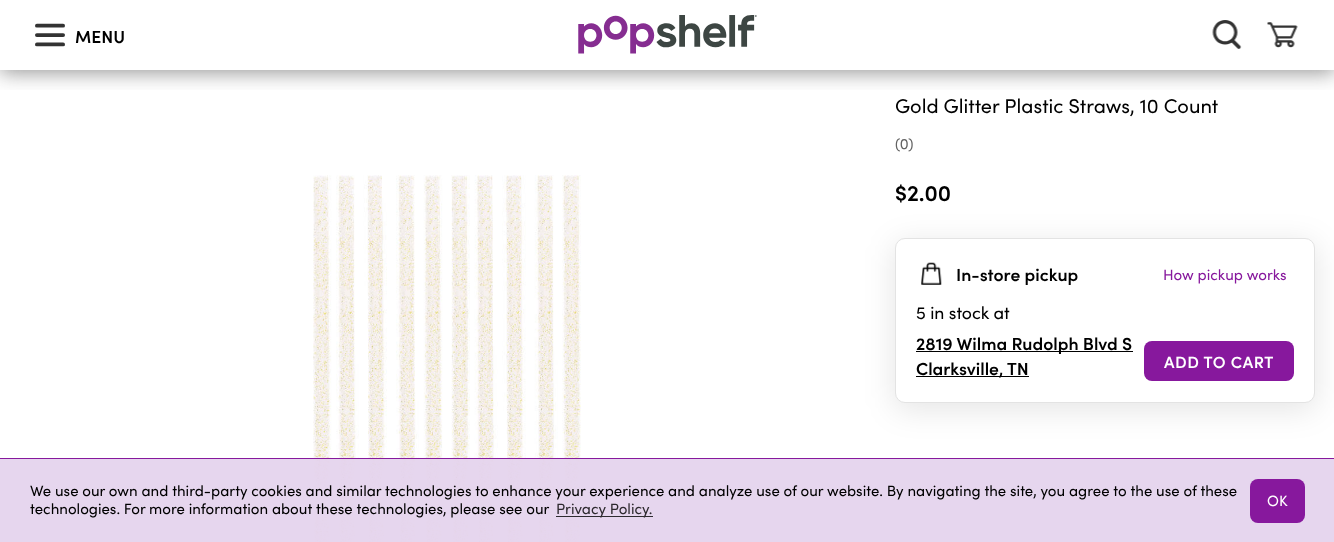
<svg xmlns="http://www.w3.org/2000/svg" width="1334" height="542">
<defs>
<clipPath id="clip1"><rect x="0" y="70" width="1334" height="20"/></clipPath>
</defs>
<rect width="100%" height="100%" fill="#fff"/>
<g clip-path="url(#clip1)">
<rect y="3" width="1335" height="70" fill="#32323280" filter="blur(10px)"/>
</g>
<image x="35" y="23" width="30" height="24" href="media/1.png"/>
<text x="75" y="43" style="font-family:Sofia;font-size:17.5px;font-weight:600;fill:#000">MENU</text>
<image x="578" y="15" width="179" height="39" href="media/2.png"/>
<image x="1212" y="20" width="30" height="29" href="media/3.png"/>
<image x="1267" y="22" width="31" height="26" href="media/4.png"/>
<image x="313" y="175" width="268" height="367" href="media/5.png"/>
<text x="895" y="113" style="font-family:Sofia;font-size:20px;fill:#000">Gold Glitter Plastic Straws, 10 Count</text>
<text x="895" y="149" style="font-family:Sofia;font-size:15px;fill:#636363">(0)</text>
<text x="895" y="201" style="font-family:Sofia;font-size:22.5px;font-weight:600;fill:#000">$2.00</text>
<rect x="894" y="243" width="422" height="167" rx="11" fill="#0000001a" filter="blur(15.5px)"/>
<rect x="895.5" y="238.5" width="419" height="164" rx="9.5" fill="#fff" stroke="#e3e3e3"/>
<image x="921" y="262" width="21" height="23" href="media/6.png"/>
<text x="956" y="281" style="font-family:Sofia;font-size:17.5px;font-weight:600;fill:#000">In-store pickup</text>
<text x="1163" y="280" style="font-family:Sofia;font-size:15px;fill:#87189d">How pickup works</text>
<text x="916" y="319" style="font-family:Sofia;font-size:17.5px;fill:#000">5 in stock at</text>
<rect x="916" y="351" width="217" height="1" fill="#000"/>
<text x="916" y="350" style="font-family:Sofia;font-size:17.5px;font-weight:600;fill:#000">2819 Wilma Rudolph Blvd S</text>
<rect x="916" y="376" width="113" height="1" fill="#000"/>
<text x="916" y="375" style="font-family:Sofia;font-size:17.5px;font-weight:600;fill:#000">Clarksville,</text>
<text x="1007" y="375" style="font-family:Sofia;font-size:17.5px;font-weight:600;fill:#000">TN</text>
<rect x="1144" y="341" width="150" height="40" rx="8" fill="#87189d"/>
<text x="1164" y="368" style="font-family:Sofia;font-size:16.25px;font-weight:600;letter-spacing:0.6px;fill:#fff">ADD TO CART</text>
<rect y="459" width="1334" height="83" fill="#e5d4edf2"/>
<rect y="458" width="1334" height="1" fill="#87189d"/>
<text x="30" y="496" style="font-family:Sofia;font-size:15px;fill:#000">We use our own and third-party cookies and similar technologies to enhance your experience and analyze use of our website. By navigating the site, you agree to the use of these</text>
<text x="30" y="514" style="font-family:Sofia;font-size:15px;fill:#000">technologies. For more information about these technologies, please see our</text>
<rect x="556" y="516" width="97" height="1" fill="#000000cc"/>
<text x="556" y="514" style="font-family:Sofia;font-size:15px;fill:#2e2a2f">Privacy Policy.</text>
<rect x="1250" y="479" width="55" height="44" rx="8" fill="#87189d"/>
<text x="1267" y="506" style="font-family:Sofia;font-size:15px;fill:#fff">OK</text>
</svg>
